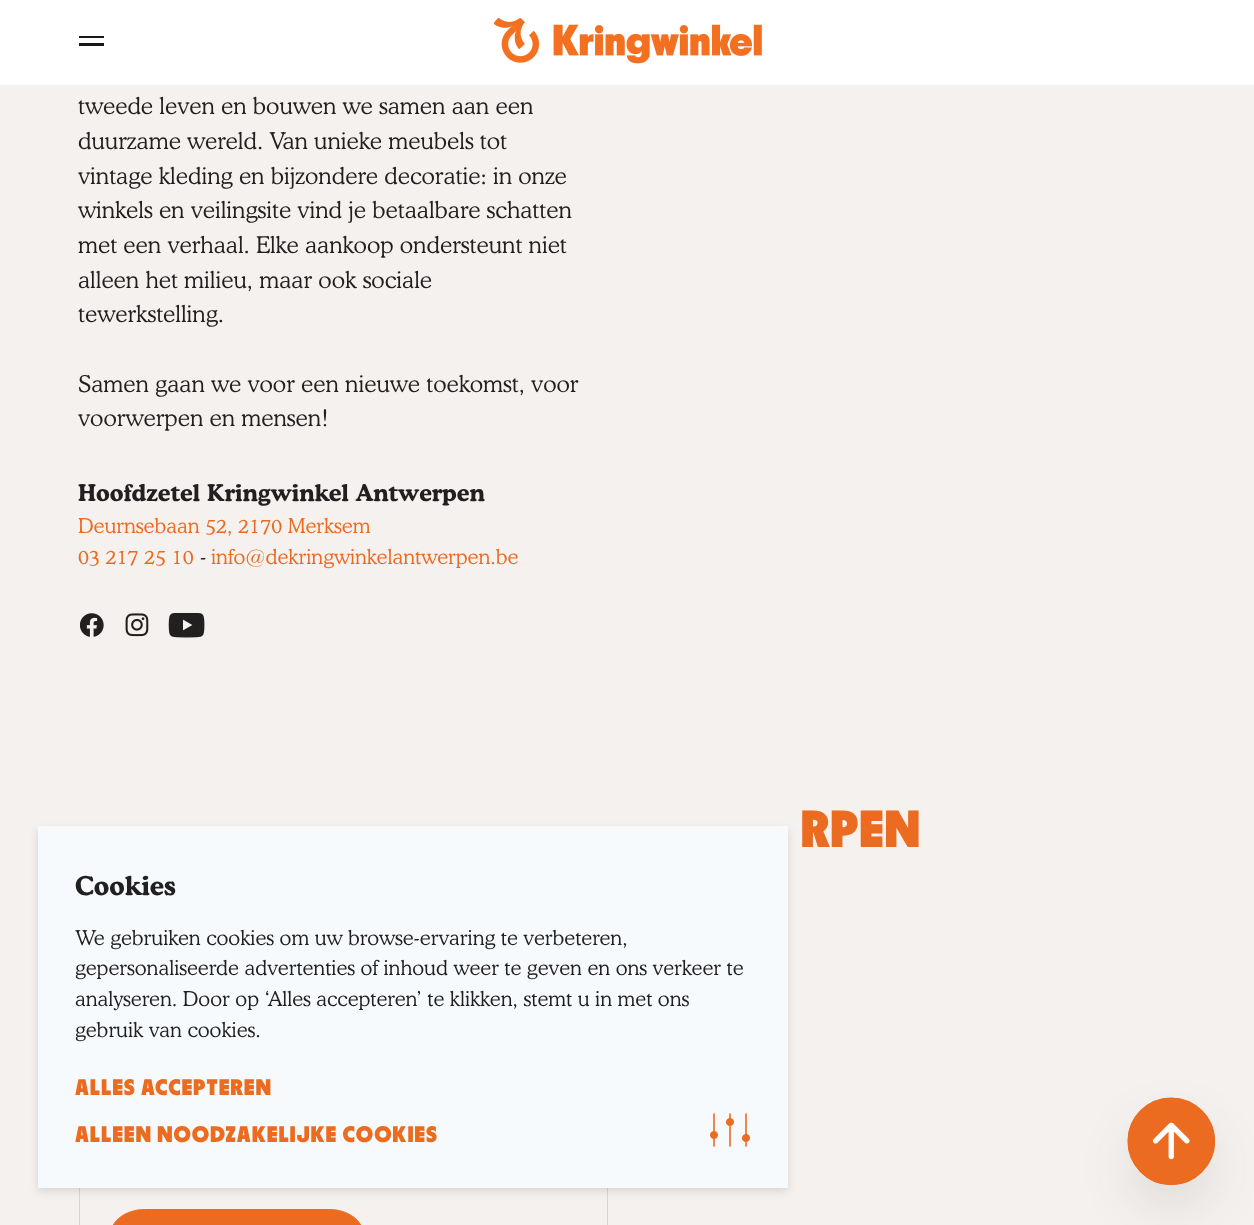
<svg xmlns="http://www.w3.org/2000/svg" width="1254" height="1225">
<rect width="100%" height="100%" fill="#f5f1ee"/>
<rect width="1254" height="85" fill="#fff"/>
<rect x="79" y="36" width="25" height="2" fill="#191616"/>
<rect x="79" y="43" width="25" height="3" fill="#191616"/>
<image x="494" y="18" width="268" height="46" href="media/1.png"/>
<text x="78" y="114" style="font-family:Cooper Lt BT;font-size:23.1px;font-weight:300;fill:#221f20">tweede leven en bouwen we samen aan een</text>
<text x="78" y="149" style="font-family:Cooper Lt BT;font-size:23.1px;font-weight:300;fill:#221f20">duurzame wereld. Van unieke meubels tot</text>
<text x="78" y="184" style="font-family:Cooper Lt BT;font-size:23.1px;font-weight:300;fill:#221f20">vintage kleding en bijzondere decoratie: in onze</text>
<text x="78" y="218" style="font-family:Cooper Lt BT;font-size:23.1px;font-weight:300;fill:#221f20">winkels en veilingsite vind je betaalbare schatten</text>
<text x="78" y="253" style="font-family:Cooper Lt BT;font-size:23.1px;font-weight:300;fill:#221f20">met een verhaal. Elke aankoop ondersteunt niet</text>
<text x="78" y="288" style="font-family:Cooper Lt BT;font-size:23.1px;font-weight:300;fill:#221f20">alleen het milieu, maar ook sociale</text>
<text x="78" y="322" style="font-family:Cooper Lt BT;font-size:23.1px;font-weight:300;fill:#221f20">tewerkstelling.</text>
<text x="78" y="392" style="font-family:Cooper Lt BT;font-size:23.1px;font-weight:300;fill:#221f20">Samen gaan we voor een nieuwe toekomst, voor</text>
<text x="78" y="426" style="font-family:Cooper Lt BT;font-size:23.1px;font-weight:300;fill:#221f20">voorwerpen en mensen!</text>
<text x="78" y="501" style="font-family:Cooper Lt BT;font-size:23.1px;font-weight:bold;fill:#221f20">Hoofdzetel Kringwinkel Antwerpen</text>
<text x="78" y="533" style="font-family:Cooper Lt BT;font-size:20.5px;font-weight:300;fill:#eb6b20">Deurnsebaan 52, 2170 Merksem</text>
<text x="78" y="564" style="font-family:Cooper Lt BT;font-size:20.5px;font-weight:300;fill:#eb6b20">03 217 25 10</text>
<text x="200" y="564" style="font-family:Cooper Lt BT;font-size:20.5px;font-weight:300;fill:#221f20">-</text>
<text x="211" y="564" style="font-family:Cooper Lt BT;font-size:20.5px;font-weight:300;fill:#eb6b20">info@dekringwinkelantwerpen.be</text>
<image x="80" y="613" width="24" height="24" href="media/2.png"/>
<image x="125" y="613" width="24" height="24" href="media/3.png"/>
<image x="168" y="613" width="37" height="25" href="media/4.png"/>
<text x="801" y="847" style="font-family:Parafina;font-size:52px;font-weight:900;letter-spacing:1.25px;fill:#eb6b20">RPEN</text>
<rect x="79.5" y="929.5" width="528" height="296" fill="none" stroke="#dad6d3"/>
<rect x="110.5" y="1209.5" width="253" height="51" rx="34" fill="#eb6b20" stroke="#eb6b20"/>
<rect x="38" y="830" width="750" height="361" fill="#0000001f" filter="blur(4px)"/>
<rect x="38" y="826" width="750" height="362" fill="#f7fafc"/>
<text x="75" y="895" style="font-family:Cooper Lt BT;font-size:26px;font-weight:bold;fill:#221f20">Cookies</text>
<text x="75" y="945" style="font-family:Cooper Lt BT;font-size:20.5px;font-weight:300;fill:#221f20">We gebruiken cookies om uw browse-ervaring te verbeteren,</text>
<text x="75" y="975" style="font-family:Cooper Lt BT;font-size:20.5px;font-weight:300;fill:#221f20">gepersonaliseerde advertenties of inhoud weer te geven en ons verkeer te</text>
<text x="75" y="1006" style="font-family:Cooper Lt BT;font-size:20.5px;font-weight:300;fill:#221f20">analyseren. Door op ‘Alles accepteren’ te klikken, stemt u in met ons</text>
<text x="75" y="1037" style="font-family:Cooper Lt BT;font-size:20.5px;font-weight:300;fill:#221f20">gebruik van cookies.</text>
<text x="75" y="1095" style="font-family:Parafina;font-size:22.5px;font-weight:900;letter-spacing:1.25px;fill:#eb6b20">ALLES ACCEPTEREN</text>
<text x="75" y="1142" style="font-family:Parafina;font-size:22.5px;font-weight:900;letter-spacing:1.25px;fill:#eb6b20">ALLEEN NOODZAKELIJKE COOKIES</text>
<image x="710" y="1113" width="40" height="34" href="media/5.png"/>
<rect x="1128" y="1123" width="87" height="87" rx="43.5" fill="#2d2d2d1a" filter="blur(25px)"/>
<path d="M1128 1141c0-24 19-43 43-43c24 0 44 19 44 43c0 24-20 44-44 44c-24 0-43-20-43-44z" fill="#eb6b20"/>
<path d="M1128 1141c0-23.5 19.5-43 43-43c24 0 43.5 19.5 43.5 43c0 24-19.5 43.5-43.5 43.5c-23.5 0-43-19.5-43-43.5z" fill="none" stroke="#eb6b20" stroke-width="1.2"/>
<image x="1153" y="1122" width="37" height="38" href="media/6.png"/>
</svg>
